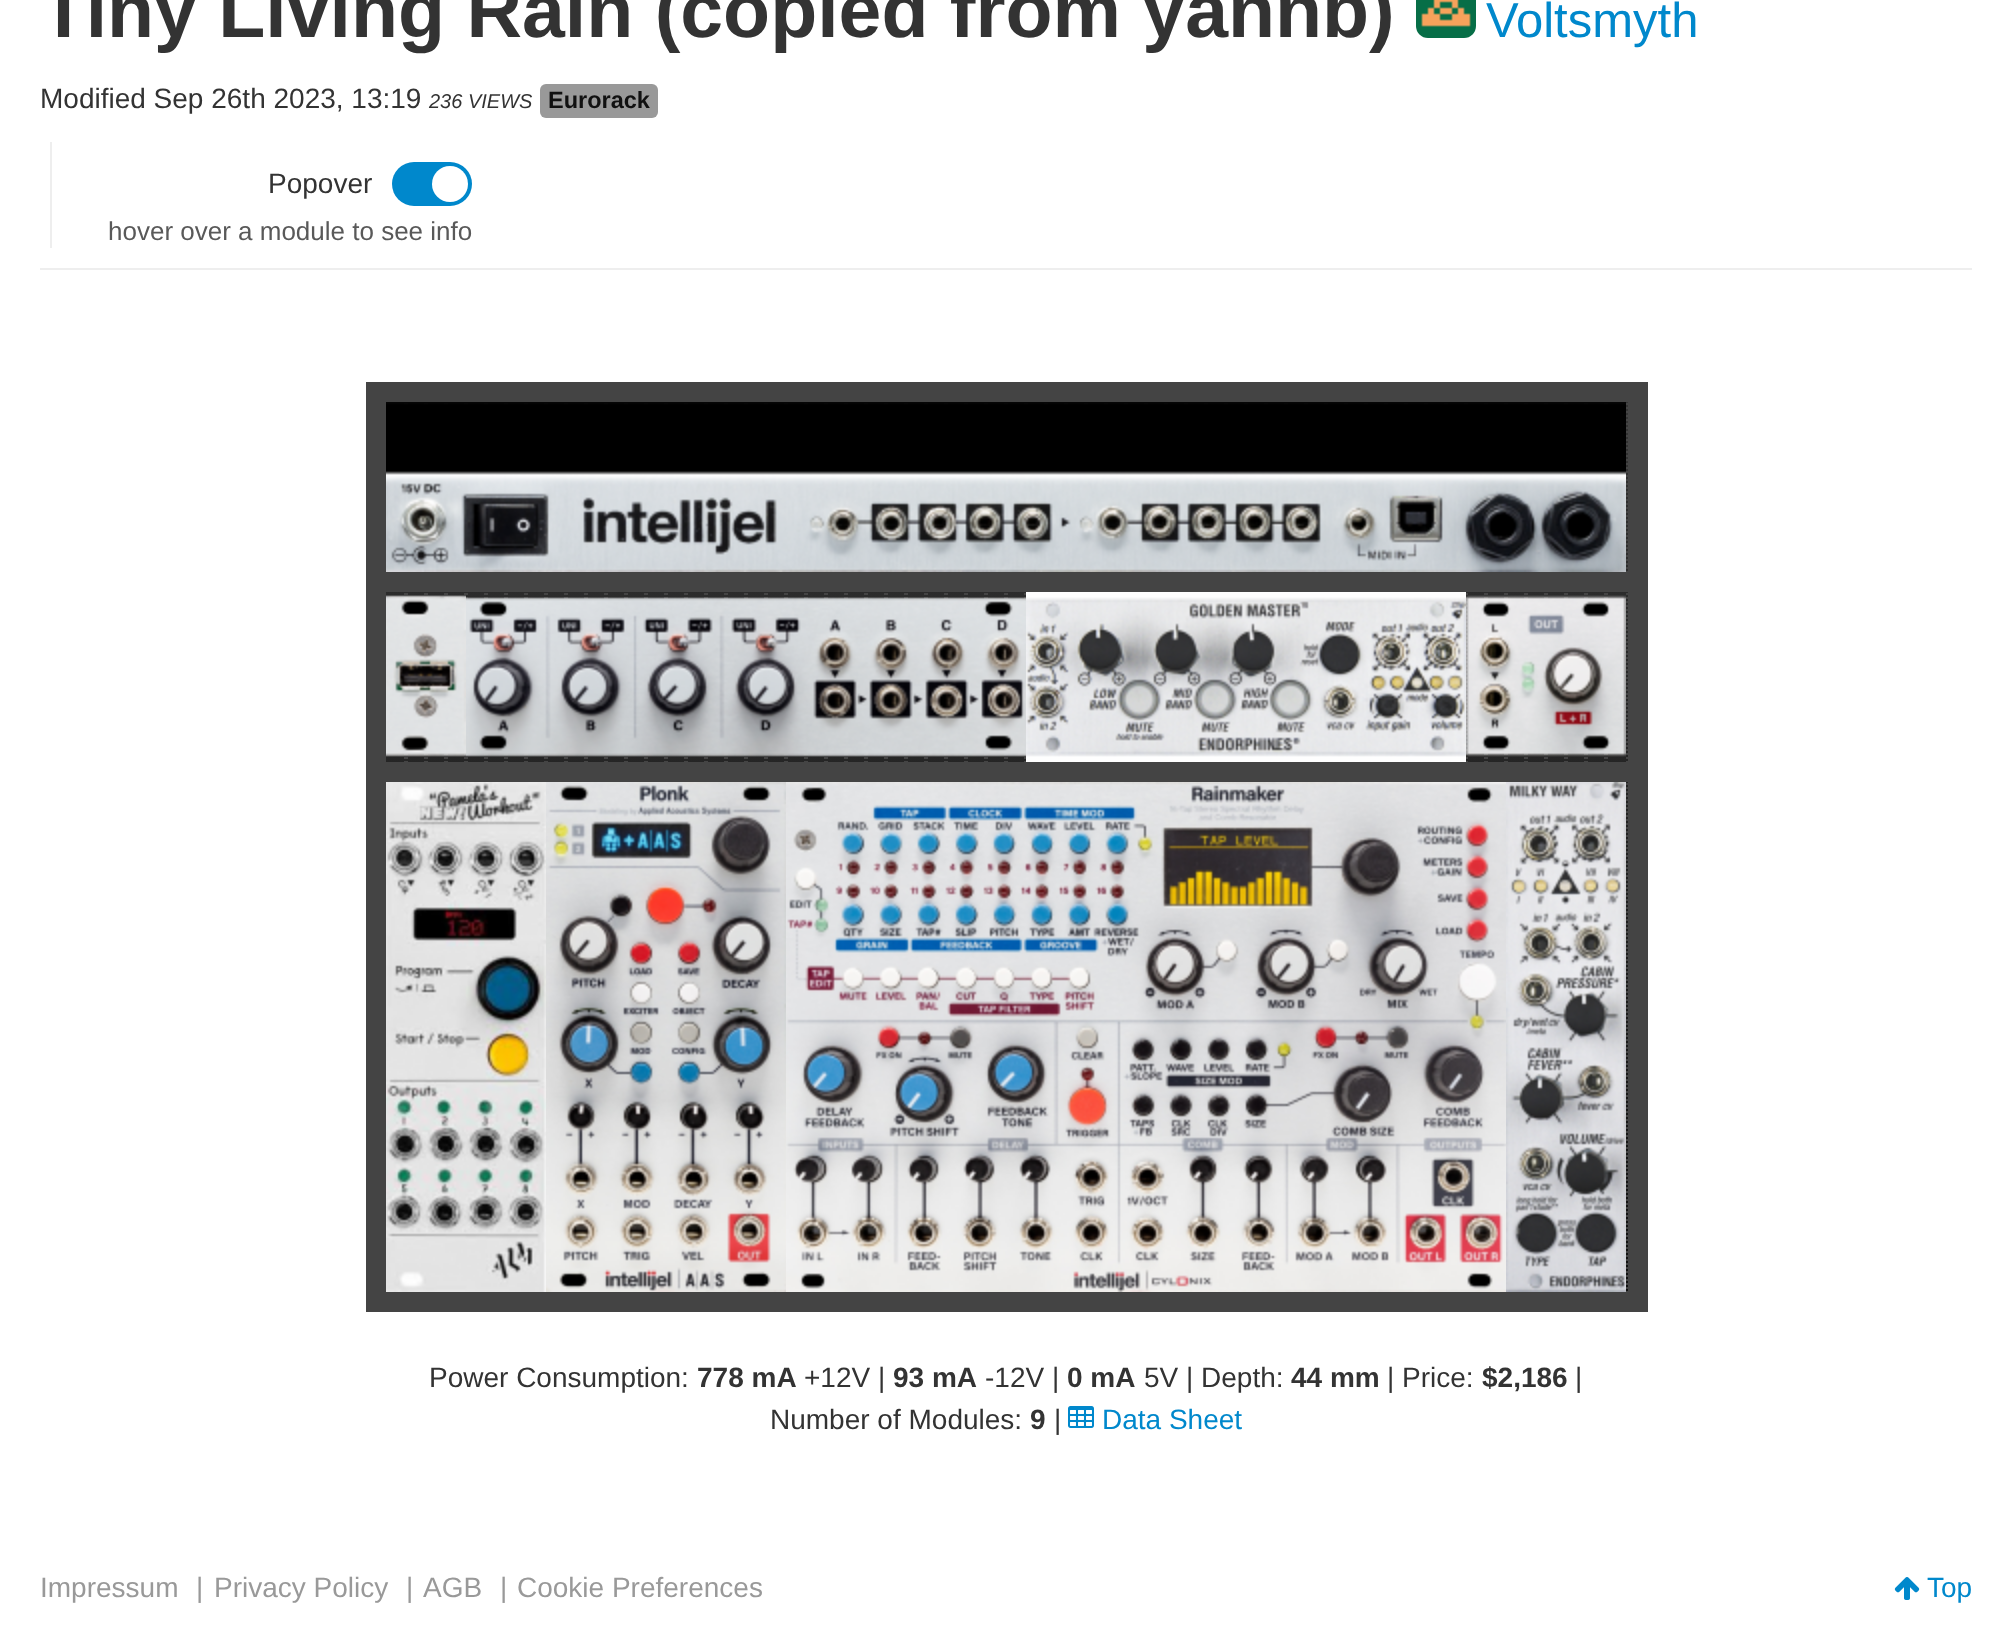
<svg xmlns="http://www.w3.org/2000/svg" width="2011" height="1628">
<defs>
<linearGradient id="g1" gradientUnits="userSpaceOnUse" x1="1007" y1="402" x2="1007" y2="1292"><stop offset="0" stop-color="#333"/><stop offset="1" stop-color="#111"/></linearGradient>
</defs>
<rect width="100%" height="100%" fill="#fff"/>
<rect x="40" y="268" width="1932" height="2" fill="#eee"/>
<text x="40" y="37" style="font-family:Liberation Sans;font-size:77px;font-weight:bold;fill:#333">Tiny Living Rain (copied from yannb)</text>
<image x="1416" y="0" width="60" height="38" href="media/1.png"/>
<text x="1486" y="37" style="font-family:Liberation Sans;font-size:49px;fill:#08c">Voltsmyth</text>
<text x="40" y="108" style="font-family:Liberation Sans;font-size:28px;fill:#333">Modified Sep 26th 2023, 13:19</text>
<text x="429" y="108" style="font-family:Liberation Sans;font-size:20px;font-style:italic;fill:#333">236 VIEWS</text>
<rect x="540" y="84" width="118" height="34" rx="6" fill="#999"/>
<text x="548" y="108" style="font-family:Liberation Sans;font-size:23.5px;font-weight:bold;fill:#111">Eurorack</text>
<rect x="50" y="142" width="2" height="106" fill="#eee"/>
<text x="268" y="193" style="font-family:Liberation Sans;font-size:28px;fill:#333">Popover</text>
<rect x="392" y="162" width="80" height="44" rx="22" fill="#08c"/>
<circle cx="450" cy="184" r="18" fill="#fff"/>
<text x="108" y="240" style="font-family:Liberation Sans;font-size:26px;fill:#595959">hover over a module to see info</text>
<rect x="386" y="402" width="1242" height="889" fill="url(#g1)"/>
<path d="M385 401h22v172h-22z" fill="none" stroke="#444" stroke-width="2" stroke-dasharray="2 2"/>
<path d="M405 401h22v172h-22z" fill="none" stroke="#444" stroke-width="2" stroke-dasharray="2 2"/>
<path d="M425 401h22v172h-22z" fill="none" stroke="#444" stroke-width="2" stroke-dasharray="2 2"/>
<path d="M445 401h22v172h-22z" fill="none" stroke="#444" stroke-width="2" stroke-dasharray="2 2"/>
<path d="M465 401h22v172h-22z" fill="none" stroke="#444" stroke-width="2" stroke-dasharray="2 2"/>
<path d="M485 401h22v172h-22z" fill="none" stroke="#444" stroke-width="2" stroke-dasharray="2 2"/>
<path d="M505 401h22v172h-22z" fill="none" stroke="#444" stroke-width="2" stroke-dasharray="2 2"/>
<path d="M525 401h22v172h-22z" fill="none" stroke="#444" stroke-width="2" stroke-dasharray="2 2"/>
<path d="M545 401h22v172h-22z" fill="none" stroke="#444" stroke-width="2" stroke-dasharray="2 2"/>
<path d="M565 401h22v172h-22z" fill="none" stroke="#444" stroke-width="2" stroke-dasharray="2 2"/>
<path d="M585 401h22v172h-22z" fill="none" stroke="#444" stroke-width="2" stroke-dasharray="2 2"/>
<path d="M605 401h22v172h-22z" fill="none" stroke="#444" stroke-width="2" stroke-dasharray="2 2"/>
<path d="M625 401h22v172h-22z" fill="none" stroke="#444" stroke-width="2" stroke-dasharray="2 2"/>
<path d="M645 401h22v172h-22z" fill="none" stroke="#444" stroke-width="2" stroke-dasharray="2 2"/>
<path d="M665 401h22v172h-22z" fill="none" stroke="#444" stroke-width="2" stroke-dasharray="2 2"/>
<path d="M685 401h22v172h-22z" fill="none" stroke="#444" stroke-width="2" stroke-dasharray="2 2"/>
<path d="M705 401h22v172h-22z" fill="none" stroke="#444" stroke-width="2" stroke-dasharray="2 2"/>
<path d="M725 401h22v172h-22z" fill="none" stroke="#444" stroke-width="2" stroke-dasharray="2 2"/>
<path d="M745 401h22v172h-22z" fill="none" stroke="#444" stroke-width="2" stroke-dasharray="2 2"/>
<path d="M765 401h22v172h-22z" fill="none" stroke="#444" stroke-width="2" stroke-dasharray="2 2"/>
<path d="M785 401h22v172h-22z" fill="none" stroke="#444" stroke-width="2" stroke-dasharray="2 2"/>
<path d="M805 401h22v172h-22z" fill="none" stroke="#444" stroke-width="2" stroke-dasharray="2 2"/>
<path d="M825 401h22v172h-22z" fill="none" stroke="#444" stroke-width="2" stroke-dasharray="2 2"/>
<path d="M845 401h22v172h-22z" fill="none" stroke="#444" stroke-width="2" stroke-dasharray="2 2"/>
<path d="M865 401h22v172h-22z" fill="none" stroke="#444" stroke-width="2" stroke-dasharray="2 2"/>
<path d="M885 401h22v172h-22z" fill="none" stroke="#444" stroke-width="2" stroke-dasharray="2 2"/>
<path d="M905 401h22v172h-22z" fill="none" stroke="#444" stroke-width="2" stroke-dasharray="2 2"/>
<path d="M925 401h22v172h-22z" fill="none" stroke="#444" stroke-width="2" stroke-dasharray="2 2"/>
<path d="M945 401h22v172h-22z" fill="none" stroke="#444" stroke-width="2" stroke-dasharray="2 2"/>
<path d="M965 401h22v172h-22z" fill="none" stroke="#444" stroke-width="2" stroke-dasharray="2 2"/>
<path d="M985 401h22v172h-22z" fill="none" stroke="#444" stroke-width="2" stroke-dasharray="2 2"/>
<path d="M1005 401h22v172h-22z" fill="none" stroke="#444" stroke-width="2" stroke-dasharray="2 2"/>
<path d="M1025 401h22v172h-22z" fill="none" stroke="#444" stroke-width="2" stroke-dasharray="2 2"/>
<path d="M1045 401h22v172h-22z" fill="none" stroke="#444" stroke-width="2" stroke-dasharray="2 2"/>
<path d="M1065 401h22v172h-22z" fill="none" stroke="#444" stroke-width="2" stroke-dasharray="2 2"/>
<path d="M1085 401h22v172h-22z" fill="none" stroke="#444" stroke-width="2" stroke-dasharray="2 2"/>
<path d="M1105 401h22v172h-22z" fill="none" stroke="#444" stroke-width="2" stroke-dasharray="2 2"/>
<path d="M1125 401h22v172h-22z" fill="none" stroke="#444" stroke-width="2" stroke-dasharray="2 2"/>
<path d="M1145 401h22v172h-22z" fill="none" stroke="#444" stroke-width="2" stroke-dasharray="2 2"/>
<path d="M1165 401h22v172h-22z" fill="none" stroke="#444" stroke-width="2" stroke-dasharray="2 2"/>
<path d="M1185 401h22v172h-22z" fill="none" stroke="#444" stroke-width="2" stroke-dasharray="2 2"/>
<path d="M1205 401h22v172h-22z" fill="none" stroke="#444" stroke-width="2" stroke-dasharray="2 2"/>
<path d="M1225 401h22v172h-22z" fill="none" stroke="#444" stroke-width="2" stroke-dasharray="2 2"/>
<path d="M1245 401h22v172h-22z" fill="none" stroke="#444" stroke-width="2" stroke-dasharray="2 2"/>
<path d="M1265 401h22v172h-22z" fill="none" stroke="#444" stroke-width="2" stroke-dasharray="2 2"/>
<path d="M1285 401h22v172h-22z" fill="none" stroke="#444" stroke-width="2" stroke-dasharray="2 2"/>
<path d="M1305 401h22v172h-22z" fill="none" stroke="#444" stroke-width="2" stroke-dasharray="2 2"/>
<path d="M1325 401h22v172h-22z" fill="none" stroke="#444" stroke-width="2" stroke-dasharray="2 2"/>
<path d="M1345 401h22v172h-22z" fill="none" stroke="#444" stroke-width="2" stroke-dasharray="2 2"/>
<path d="M1365 401h22v172h-22z" fill="none" stroke="#444" stroke-width="2" stroke-dasharray="2 2"/>
<path d="M1385 401h22v172h-22z" fill="none" stroke="#444" stroke-width="2" stroke-dasharray="2 2"/>
<path d="M1405 401h22v172h-22z" fill="none" stroke="#444" stroke-width="2" stroke-dasharray="2 2"/>
<path d="M1425 401h22v172h-22z" fill="none" stroke="#444" stroke-width="2" stroke-dasharray="2 2"/>
<path d="M1445 401h22v172h-22z" fill="none" stroke="#444" stroke-width="2" stroke-dasharray="2 2"/>
<path d="M1465 401h22v172h-22z" fill="none" stroke="#444" stroke-width="2" stroke-dasharray="2 2"/>
<path d="M1485 401h22v172h-22z" fill="none" stroke="#444" stroke-width="2" stroke-dasharray="2 2"/>
<path d="M1505 401h22v172h-22z" fill="none" stroke="#444" stroke-width="2" stroke-dasharray="2 2"/>
<path d="M1525 401h22v172h-22z" fill="none" stroke="#444" stroke-width="2" stroke-dasharray="2 2"/>
<path d="M1545 401h22v172h-22z" fill="none" stroke="#444" stroke-width="2" stroke-dasharray="2 2"/>
<path d="M1565 401h22v172h-22z" fill="none" stroke="#444" stroke-width="2" stroke-dasharray="2 2"/>
<path d="M1585 401h22v172h-22z" fill="none" stroke="#444" stroke-width="2" stroke-dasharray="2 2"/>
<path d="M1605 401h22v172h-22z" fill="none" stroke="#444" stroke-width="2" stroke-dasharray="2 2"/>
<path d="M385 591h22v172h-22z" fill="none" stroke="#444" stroke-width="2" stroke-dasharray="2 2"/>
<path d="M405 591h22v172h-22z" fill="none" stroke="#444" stroke-width="2" stroke-dasharray="2 2"/>
<path d="M425 591h22v172h-22z" fill="none" stroke="#444" stroke-width="2" stroke-dasharray="2 2"/>
<path d="M445 591h22v172h-22z" fill="none" stroke="#444" stroke-width="2" stroke-dasharray="2 2"/>
<path d="M465 591h22v172h-22z" fill="none" stroke="#444" stroke-width="2" stroke-dasharray="2 2"/>
<path d="M485 591h22v172h-22z" fill="none" stroke="#444" stroke-width="2" stroke-dasharray="2 2"/>
<path d="M505 591h22v172h-22z" fill="none" stroke="#444" stroke-width="2" stroke-dasharray="2 2"/>
<path d="M525 591h22v172h-22z" fill="none" stroke="#444" stroke-width="2" stroke-dasharray="2 2"/>
<path d="M545 591h22v172h-22z" fill="none" stroke="#444" stroke-width="2" stroke-dasharray="2 2"/>
<path d="M565 591h22v172h-22z" fill="none" stroke="#444" stroke-width="2" stroke-dasharray="2 2"/>
<path d="M585 591h22v172h-22z" fill="none" stroke="#444" stroke-width="2" stroke-dasharray="2 2"/>
<path d="M605 591h22v172h-22z" fill="none" stroke="#444" stroke-width="2" stroke-dasharray="2 2"/>
<path d="M625 591h22v172h-22z" fill="none" stroke="#444" stroke-width="2" stroke-dasharray="2 2"/>
<path d="M645 591h22v172h-22z" fill="none" stroke="#444" stroke-width="2" stroke-dasharray="2 2"/>
<path d="M665 591h22v172h-22z" fill="none" stroke="#444" stroke-width="2" stroke-dasharray="2 2"/>
<path d="M685 591h22v172h-22z" fill="none" stroke="#444" stroke-width="2" stroke-dasharray="2 2"/>
<path d="M705 591h22v172h-22z" fill="none" stroke="#444" stroke-width="2" stroke-dasharray="2 2"/>
<path d="M725 591h22v172h-22z" fill="none" stroke="#444" stroke-width="2" stroke-dasharray="2 2"/>
<path d="M745 591h22v172h-22z" fill="none" stroke="#444" stroke-width="2" stroke-dasharray="2 2"/>
<path d="M765 591h22v172h-22z" fill="none" stroke="#444" stroke-width="2" stroke-dasharray="2 2"/>
<path d="M785 591h22v172h-22z" fill="none" stroke="#444" stroke-width="2" stroke-dasharray="2 2"/>
<path d="M805 591h22v172h-22z" fill="none" stroke="#444" stroke-width="2" stroke-dasharray="2 2"/>
<path d="M825 591h22v172h-22z" fill="none" stroke="#444" stroke-width="2" stroke-dasharray="2 2"/>
<path d="M845 591h22v172h-22z" fill="none" stroke="#444" stroke-width="2" stroke-dasharray="2 2"/>
<path d="M865 591h22v172h-22z" fill="none" stroke="#444" stroke-width="2" stroke-dasharray="2 2"/>
<path d="M885 591h22v172h-22z" fill="none" stroke="#444" stroke-width="2" stroke-dasharray="2 2"/>
<path d="M905 591h22v172h-22z" fill="none" stroke="#444" stroke-width="2" stroke-dasharray="2 2"/>
<path d="M925 591h22v172h-22z" fill="none" stroke="#444" stroke-width="2" stroke-dasharray="2 2"/>
<path d="M945 591h22v172h-22z" fill="none" stroke="#444" stroke-width="2" stroke-dasharray="2 2"/>
<path d="M965 591h22v172h-22z" fill="none" stroke="#444" stroke-width="2" stroke-dasharray="2 2"/>
<path d="M985 591h22v172h-22z" fill="none" stroke="#444" stroke-width="2" stroke-dasharray="2 2"/>
<path d="M1005 591h22v172h-22z" fill="none" stroke="#444" stroke-width="2" stroke-dasharray="2 2"/>
<path d="M1025 591h22v172h-22z" fill="none" stroke="#444" stroke-width="2" stroke-dasharray="2 2"/>
<path d="M1445 591h22v172h-22z" fill="none" stroke="#444" stroke-width="2" stroke-dasharray="2 2"/>
<path d="M1465 591h22v172h-22z" fill="none" stroke="#444" stroke-width="2" stroke-dasharray="2 2"/>
<path d="M1485 591h22v172h-22z" fill="none" stroke="#444" stroke-width="2" stroke-dasharray="2 2"/>
<path d="M1505 591h22v172h-22z" fill="none" stroke="#444" stroke-width="2" stroke-dasharray="2 2"/>
<path d="M1525 591h22v172h-22z" fill="none" stroke="#444" stroke-width="2" stroke-dasharray="2 2"/>
<path d="M1545 591h22v172h-22z" fill="none" stroke="#444" stroke-width="2" stroke-dasharray="2 2"/>
<path d="M1565 591h22v172h-22z" fill="none" stroke="#444" stroke-width="2" stroke-dasharray="2 2"/>
<path d="M1585 591h22v172h-22z" fill="none" stroke="#444" stroke-width="2" stroke-dasharray="2 2"/>
<path d="M1605 591h22v172h-22z" fill="none" stroke="#444" stroke-width="2" stroke-dasharray="2 2"/>
<rect x="376" y="392" width="1262" height="190" fill="none" stroke="#444" stroke-width="20"/>
<path d="M1605 781h22v512h-22z" fill="none" stroke="#444" stroke-width="2" stroke-dasharray="2 2"/>
<rect x="376" y="582" width="1262" height="190" fill="none" stroke="#444" stroke-width="20"/>
<rect x="376" y="772" width="1262" height="530" fill="none" stroke="#444" stroke-width="20"/>
<image x="386" y="402" width="1240" height="170" href="media/2.png"/>
<image x="386" y="595" width="80" height="162" href="media/3.png"/>
<image x="466" y="597" width="560" height="160" href="media/4.png"/>
<image x="1026" y="592" width="440" height="170" href="media/5.png"/>
<image x="1466" y="595" width="160" height="162" href="media/6.png"/>
<image x="386" y="782" width="160" height="510" href="media/7.png"/>
<image x="546" y="782" width="240" height="510" href="media/8.png"/>
<image x="786" y="782" width="720" height="510" href="media/9.png"/>
<image x="1506" y="782" width="120" height="510" href="media/10.png"/>
<text x="429" y="1387" style="font-family:Liberation Sans;font-size:28px;fill:#333">Power Consumption:</text>
<text x="697" y="1387" style="font-family:Liberation Sans;font-size:28px;font-weight:bold;fill:#333">778 mA</text>
<text x="804" y="1387" style="font-family:Liberation Sans;font-size:28px;fill:#333">+12V |</text>
<text x="893" y="1387" style="font-family:Liberation Sans;font-size:28px;font-weight:bold;fill:#333">93 mA</text>
<text x="985" y="1387" style="font-family:Liberation Sans;font-size:28px;fill:#333">-12V |</text>
<text x="1067" y="1387" style="font-family:Liberation Sans;font-size:28px;font-weight:bold;fill:#333">0 mA</text>
<text x="1144" y="1387" style="font-family:Liberation Sans;font-size:28px;fill:#333">5V | Depth:</text>
<text x="1291" y="1387" style="font-family:Liberation Sans;font-size:28px;font-weight:bold;fill:#333">44 mm</text>
<text x="1387" y="1387" style="font-family:Liberation Sans;font-size:28px;fill:#333">| Price:</text>
<text x="1482" y="1387" style="font-family:Liberation Sans;font-size:28px;font-weight:bold;fill:#333">$2,186</text>
<text x="1575" y="1387" style="font-family:Liberation Sans;font-size:28px;fill:#333">|</text>
<text x="770" y="1429" style="font-family:Liberation Sans;font-size:28px;fill:#333">Number of Modules:</text>
<text x="1030" y="1429" style="font-family:Liberation Sans;font-size:28px;font-weight:bold;fill:#333">9</text>
<text x="1054" y="1429" style="font-family:Liberation Sans;font-size:28px;fill:#333">|</text>
<image x="1068" y="1406" width="26" height="22" href="media/11.png"/>
<text x="1102" y="1429" style="font-family:Liberation Sans;font-size:28px;fill:#08c">Data Sheet</text>
<text x="40" y="1597" style="font-family:Liberation Sans;font-size:28px;fill:#999">Impressum</text>
<text x="196" y="1597" style="font-family:Liberation Sans;font-size:28px;fill:#999">|</text>
<text x="214" y="1597" style="font-family:Liberation Sans;font-size:28px;fill:#999">Privacy Policy</text>
<text x="406" y="1597" style="font-family:Liberation Sans;font-size:28px;fill:#999">|</text>
<text x="423" y="1597" style="font-family:Liberation Sans;font-size:28px;fill:#999">AGB</text>
<text x="500" y="1597" style="font-family:Liberation Sans;font-size:28px;fill:#999">|</text>
<text x="517" y="1597" style="font-family:Liberation Sans;font-size:28px;fill:#999">Cookie Preferences</text>
<image x="1894" y="1577" width="26" height="23" href="media/12.png"/>
<text x="1927" y="1597" style="font-family:Liberation Sans;font-size:28px;fill:#08c">Top</text>
</svg>
